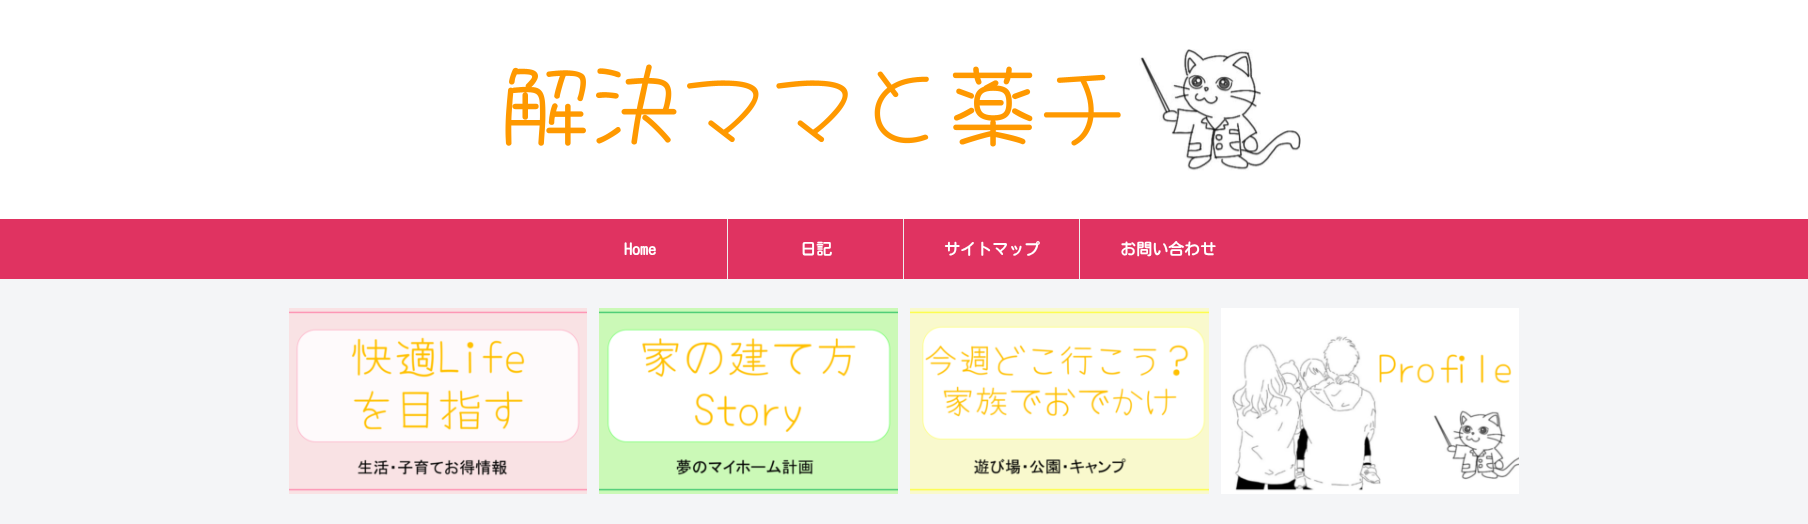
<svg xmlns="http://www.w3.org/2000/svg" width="1808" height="524">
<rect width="100%" height="100%" fill="#f4f5f7"/>
<rect width="1808" height="219" fill="#fff"/>
<image x="505" y="49" width="796" height="122" href="media/1.png"/>
<rect y="219" width="1808" height="60" fill="#e03361"/>
<rect x="727" y="219" width="1" height="60" fill="#eee"/>
<text x="624" y="255" style="font-family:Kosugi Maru;font-size:16px;font-weight:bold;fill:#fff">Home</text>
<rect x="903" y="219" width="1" height="60" fill="#eee"/>
<text x="800" y="255" style="font-family:Kosugi Maru;font-size:16px;font-weight:bold;fill:#fff">日記</text>
<rect x="1079" y="219" width="1" height="60" fill="#eee"/>
<text x="944" y="255" style="font-family:Kosugi Maru;font-size:16px;font-weight:bold;fill:#fff">サイトマップ</text>
<text x="1120" y="255" style="font-family:Kosugi Maru;font-size:16px;font-weight:bold;fill:#fff">お問い合わせ</text>
<image x="289" y="308" width="298" height="186" href="media/2.png"/>
<image x="599" y="308" width="299" height="186" href="media/3.png"/>
<image x="910" y="308" width="299" height="186" href="media/4.png"/>
<image x="1221" y="308" width="298" height="186" href="media/5.png"/>
</svg>
